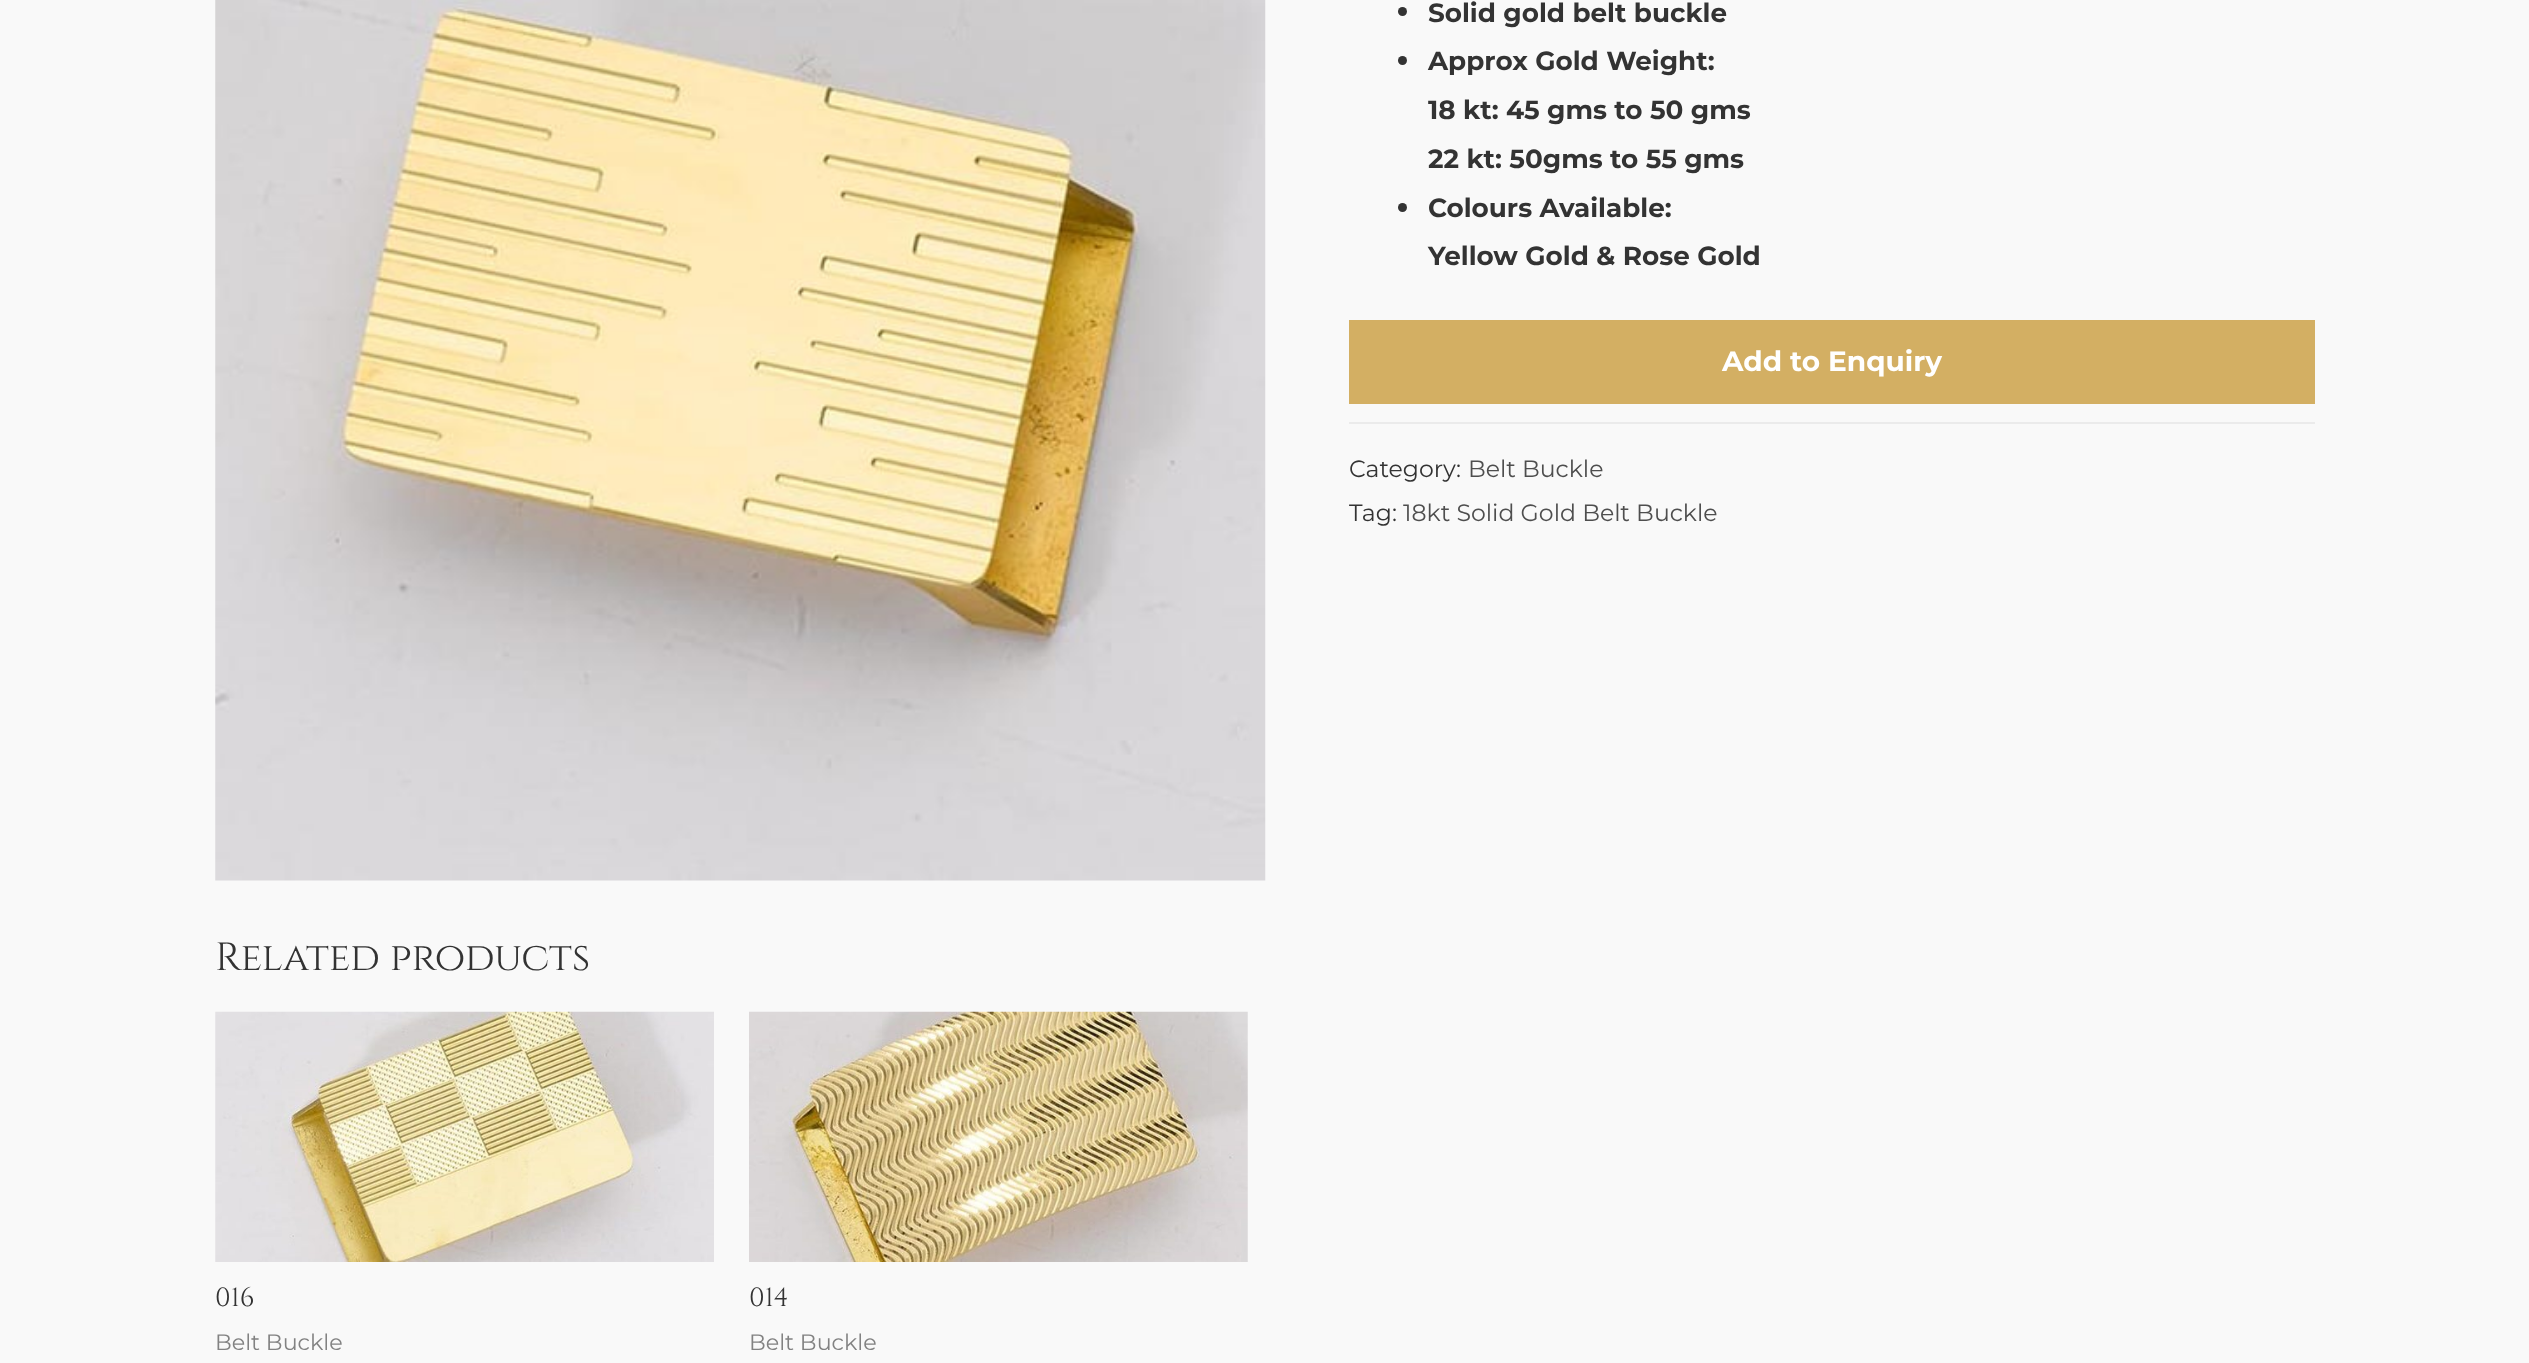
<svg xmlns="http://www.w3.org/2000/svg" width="2529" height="1363">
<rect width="100%" height="100%" fill="#f9f9f9"/>
<image x="215" y="0" width="1051" height="881" href="media/1.png"/>
<circle cx="1402.5" cy="11.5" r="4.5" fill="#333"/>
<text x="1428" y="22" style="font-family:Montserrat;font-size:26.25px;font-weight:bold;fill:#333">Solid gold belt buckle</text>
<circle cx="1402.5" cy="60.5" r="4.5" fill="#333"/>
<text x="1428" y="70" style="font-family:Montserrat;font-size:26.25px;font-weight:bold;fill:#333">Approx Gold Weight:</text>
<text x="1428" y="119" style="font-family:Montserrat;font-size:26.25px;font-weight:bold;fill:#333">18 kt: 45 gms to 50 gms</text>
<text x="1428" y="168" style="font-family:Montserrat;font-size:26.25px;font-weight:bold;fill:#333">22 kt: 50gms to 55 gms</text>
<circle cx="1402.5" cy="207.5" r="4.5" fill="#333"/>
<text x="1428" y="217" style="font-family:Montserrat;font-size:26.25px;font-weight:bold;fill:#333">Colours Available:</text>
<text x="1428" y="265" style="font-family:Montserrat;font-size:26.25px;font-weight:bold;fill:#333">Yellow Gold &amp; Rose Gold</text>
<rect x="1349" y="320" width="966" height="84" fill="#d3af63"/>
<text x="1722" y="371" style="font-family:Montserrat;font-size:28px;font-weight:bold;fill:#fff">Add to Enquiry</text>
<rect x="1349" y="422" width="966" height="2" fill="#ebebeb"/>
<text x="1349" y="477" style="font-family:Montserrat;font-size:23.6px;fill:#333">Category:</text>
<text x="1468" y="477" style="font-family:Montserrat;font-size:23.6px;fill:#4e4e4e">Belt Buckle</text>
<text x="1349" y="521" style="font-family:Montserrat;font-size:23.6px;fill:#333">Tag:</text>
<text x="1403" y="521" style="font-family:Montserrat;font-size:23.6px;fill:#4e4e4e">18kt Solid Gold Belt Buckle</text>
<text x="215" y="970" style="font-family:Cinzel;font-size:39.4px;fill:#333">Related products</text>
<image x="215" y="1011" width="499" height="251" href="media/2.png"/>
<text x="215" y="1306" style="font-family:Cinzel;font-size:26.25px;fill:#333">016</text>
<text x="215" y="1350" style="font-family:Montserrat;font-size:22.25px;fill:#828282">Belt Buckle</text>
<image x="749" y="1011" width="499" height="251" href="media/3.png"/>
<text x="749" y="1306" style="font-family:Cinzel;font-size:26.25px;fill:#333">014</text>
<text x="749" y="1350" style="font-family:Montserrat;font-size:22.25px;fill:#828282">Belt Buckle</text>
</svg>
